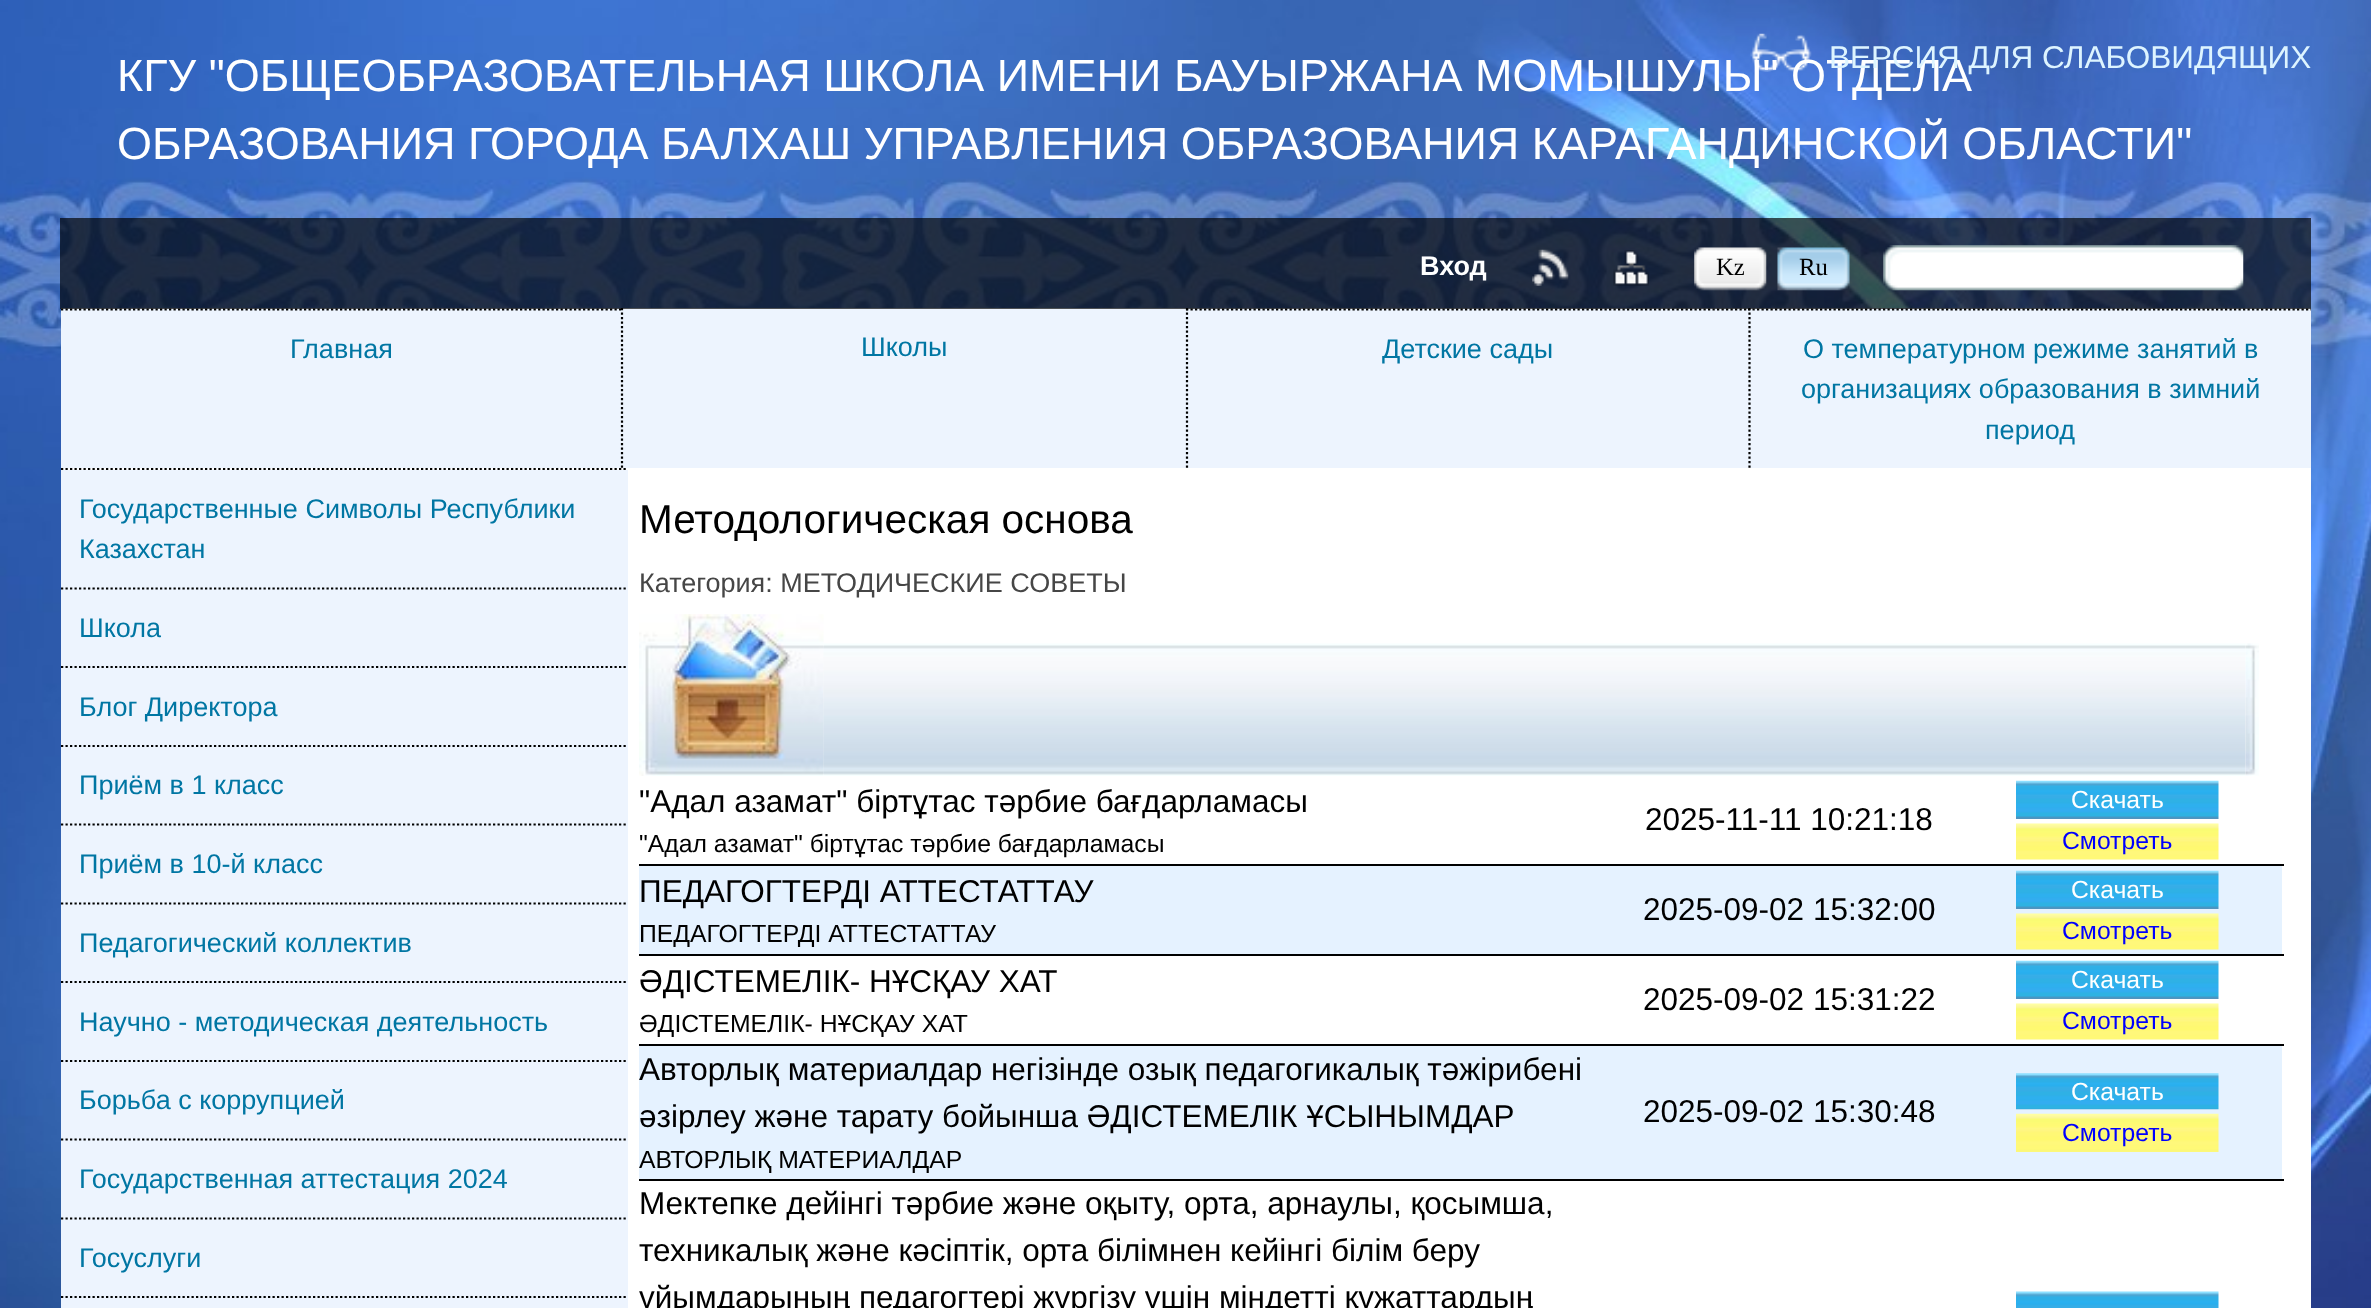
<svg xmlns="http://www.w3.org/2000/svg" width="2371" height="1308">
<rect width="100%" height="100%" fill="#fff"/>
<image x="0" y="0" width="2371" height="1308" href="media/1.png"/>
<text x="117" y="91" style="font-family:Liberation Sans;font-size:45px;fill:#fff">КГУ "ОБЩЕОБРАЗОВАТЕЛЬНАЯ ШКОЛА ИМЕНИ БАУЫРЖАНА МОМЫШУЛЫ" ОТДЕЛА</text>
<image x="1750" y="33" width="62" height="39" href="media/2.png"/>
<text x="1829" y="68" style="font-family:Liberation Sans;font-size:31.5px;fill:#ddf4ff">ВЕРСИЯ ДЛЯ СЛАБОВИДЯЩИХ</text>
<text x="117" y="159" style="font-family:Liberation Sans;font-size:45px;fill:#fff">ОБРАЗОВАНИЯ ГОРОДА БАЛХАШ УПРАВЛЕНИЯ ОБРАЗОВАНИЯ КАРАГАНДИНСКОЙ ОБЛАСТИ"</text>
<rect x="61" y="308" width="2250" height="160" fill="#edf4fe"/>
<rect x="60" y="218" width="2251" height="91" fill="#000000ab"/>
<text x="1420" y="275" style="font-family:Liberation Sans;font-size:27px;font-weight:bold;fill:#fff">Вход</text>
<image x="1532" y="249" width="37" height="37" href="media/3.png"/>
<image x="1613" y="250" width="36" height="36" href="media/4.png"/>
<image x="1694" y="247" width="73" height="44" href="media/5.png"/>
<text x="1716" y="275" style="font-family:Liberation Serif;font-size:24.75px;fill:#000">Kz</text>
<image x="1777" y="247" width="73" height="44" href="media/6.png"/>
<text x="1799" y="275" style="font-family:Liberation Serif;font-size:24.75px;fill:#000">Ru</text>
<image x="1883" y="245" width="361" height="46" href="media/7.png"/>
<rect x="63" y="468" width="2248" height="840" fill="#fff"/>
<path d="M61 309.5h560" fill="none" stroke="#000" stroke-width="2.2" stroke-dasharray="2.25 2.25"/>
<text x="290" y="358" style="font-family:Liberation Sans;font-size:27px;fill:#0076a3">Главная</text>
<path d="M61 469h567" fill="none" stroke="#000" stroke-width="2.2" stroke-dasharray="2.25 2.25"/>
<path d="M622 308v160" fill="none" stroke="#000" stroke-width="2.2" stroke-dasharray="2.25 2.25"/>
<text x="861" y="356" style="font-family:Liberation Sans;font-size:27px;fill:#0076a3">Школы</text>
<path d="M1186 309.5h562" fill="none" stroke="#000" stroke-width="2.2" stroke-dasharray="2.25 2.25"/>
<path d="M1187 308v160" fill="none" stroke="#000" stroke-width="2.2" stroke-dasharray="2.25 2.25"/>
<text x="1382" y="358" style="font-family:Liberation Sans;font-size:27px;fill:#0076a3">Детские сады</text>
<path d="M1748 309.5h563" fill="none" stroke="#000" stroke-width="2.2" stroke-dasharray="2.25 2.25"/>
<path d="M1749.5 308v160" fill="none" stroke="#000" stroke-width="2.2" stroke-dasharray="2.25 2.25"/>
<text x="1803" y="358" style="font-family:Liberation Sans;font-size:27px;fill:#0076a3">О температурном режиме занятий в</text>
<text x="1801" y="398" style="font-family:Liberation Sans;font-size:27px;fill:#0076a3">организациях образования в зимний</text>
<text x="1985" y="439" style="font-family:Liberation Sans;font-size:27px;fill:#0076a3">период</text>
<rect x="61" y="470" width="567" height="838" fill="#edf4fe"/>
<text x="79" y="518" style="font-family:Liberation Sans;font-size:27px;fill:#0076a3">Государственные Символы Республики</text>
<text x="79" y="558" style="font-family:Liberation Sans;font-size:27px;fill:#0076a3">Казахстан</text>
<path d="M61 588.5h567" fill="none" stroke="#000" stroke-width="2.2" stroke-dasharray="2.25 2.25"/>
<text x="79" y="637" style="font-family:Liberation Sans;font-size:27px;fill:#0076a3">Школа</text>
<path d="M61 667h567" fill="none" stroke="#000" stroke-width="2.2" stroke-dasharray="2.25 2.25"/>
<text x="79" y="716" style="font-family:Liberation Sans;font-size:27px;fill:#0076a3">Блог Директора</text>
<path d="M61 746h567" fill="none" stroke="#000" stroke-width="2.2" stroke-dasharray="2.25 2.25"/>
<text x="79" y="794" style="font-family:Liberation Sans;font-size:27px;fill:#0076a3">Приём в 1 класс</text>
<path d="M61 824.5h567" fill="none" stroke="#000" stroke-width="2.2" stroke-dasharray="2.25 2.25"/>
<text x="79" y="873" style="font-family:Liberation Sans;font-size:27px;fill:#0076a3">Приём в 10-й класс</text>
<path d="M61 903.5h567" fill="none" stroke="#000" stroke-width="2.2" stroke-dasharray="2.25 2.25"/>
<text x="79" y="952" style="font-family:Liberation Sans;font-size:27px;fill:#0076a3">Педагогический коллектив</text>
<path d="M61 982h567" fill="none" stroke="#000" stroke-width="2.2" stroke-dasharray="2.25 2.25"/>
<text x="79" y="1031" style="font-family:Liberation Sans;font-size:27px;fill:#0076a3">Научно - методическая деятельность</text>
<path d="M61 1061h567" fill="none" stroke="#000" stroke-width="2.2" stroke-dasharray="2.25 2.25"/>
<text x="79" y="1109" style="font-family:Liberation Sans;font-size:27px;fill:#0076a3">Борьба с коррупцией</text>
<path d="M61 1139.5h567" fill="none" stroke="#000" stroke-width="2.2" stroke-dasharray="2.25 2.25"/>
<text x="79" y="1188" style="font-family:Liberation Sans;font-size:27px;fill:#0076a3">Государственная аттестация 2024</text>
<path d="M61 1218.5h567" fill="none" stroke="#000" stroke-width="2.2" stroke-dasharray="2.25 2.25"/>
<text x="79" y="1267" style="font-family:Liberation Sans;font-size:27px;fill:#0076a3">Госуслуги</text>
<path d="M61 1297h567" fill="none" stroke="#000" stroke-width="2.2" stroke-dasharray="2.25 2.25"/>
<text x="639" y="533" style="font-family:Liberation Sans;font-size:40.5px;fill:#000">Методологическая основа</text>
<text x="639" y="592" style="font-family:Liberation Sans;font-size:27px;fill:#464646">Категория: МЕТОДИЧЕСКИЕ СОВЕТЫ</text>
<image x="639" y="614" width="185" height="162" href="media/8.png"/>
<image x="823" y="643" width="1423" height="133" href="media/9.png"/>
<image x="823" y="646" width="1" height="128" href="media/10.png"/>
<image x="2245" y="643" width="14" height="133" href="media/11.png"/>
<rect x="639" y="864" width="1645" height="2" fill="#000"/>
<text x="639" y="812" style="font-family:Liberation Sans;font-size:31.5px;fill:#000">"Адал азамат" біртұтас тәрбие бағдарламасы</text>
<text x="639" y="852" style="font-family:Liberation Sans;font-size:24.75px;fill:#000">"Адал азамат" біртұтас тәрбие бағдарламасы</text>
<text x="1645" y="830" style="font-family:Liberation Sans;font-size:31.5px;fill:#000">2025-11-11 10:21:18</text>
<image x="2016" y="780" width="203" height="39" href="media/12.png"/>
<text x="2071" y="808" style="font-family:Liberation Sans;font-size:24.75px;fill:#fff">Скачать</text>
<image x="2016" y="823" width="203" height="37" href="media/13.png"/>
<text x="2062" y="849" style="font-family:Liberation Sans;font-size:24.75px;fill:#00f">Смотреть</text>
<rect x="639" y="866" width="1643" height="88" fill="#e5f2ff"/>
<rect x="639" y="954" width="1645" height="2" fill="#000"/>
<text x="639" y="902" style="font-family:Liberation Sans;font-size:31.5px;fill:#000">ПЕДАГОГТЕРДІ АТТЕСТАТТАУ</text>
<text x="639" y="942" style="font-family:Liberation Sans;font-size:24.75px;fill:#000">ПЕДАГОГТЕРДІ АТТЕСТАТТАУ</text>
<text x="1643" y="920" style="font-family:Liberation Sans;font-size:31.5px;fill:#000">2025-09-02 15:32:00</text>
<image x="2016" y="870" width="203" height="39" href="media/14.png"/>
<text x="2071" y="898" style="font-family:Liberation Sans;font-size:24.75px;fill:#fff">Скачать</text>
<image x="2016" y="913" width="203" height="37" href="media/15.png"/>
<text x="2062" y="939" style="font-family:Liberation Sans;font-size:24.75px;fill:#00f">Смотреть</text>
<rect x="639" y="1044" width="1645" height="2" fill="#000"/>
<text x="639" y="992" style="font-family:Liberation Sans;font-size:31.5px;fill:#000">ӘДІСТЕМЕЛІК- НҰСҚАУ ХАТ</text>
<text x="639" y="1032" style="font-family:Liberation Sans;font-size:24.75px;fill:#000">ӘДІСТЕМЕЛІК- НҰСҚАУ ХАТ</text>
<text x="1643" y="1010" style="font-family:Liberation Sans;font-size:31.5px;fill:#000">2025-09-02 15:31:22</text>
<image x="2016" y="960" width="203" height="39" href="media/12.png"/>
<text x="2071" y="988" style="font-family:Liberation Sans;font-size:24.75px;fill:#fff">Скачать</text>
<image x="2016" y="1003" width="203" height="37" href="media/16.png"/>
<text x="2062" y="1029" style="font-family:Liberation Sans;font-size:24.75px;fill:#00f">Смотреть</text>
<rect x="639" y="1046" width="1643" height="133" fill="#e5f2ff"/>
<rect x="639" y="1179" width="1645" height="2" fill="#000"/>
<text x="639" y="1080" style="font-family:Liberation Sans;font-size:31.5px;fill:#000">Авторлық материалдар негізінде озық педагогикалық тәжірибені</text>
<text x="639" y="1127" style="font-family:Liberation Sans;font-size:31.5px;fill:#000">әзірлеу және тарату бойынша ӘДІСТЕМЕЛІК ҰСЫНЫМДАР</text>
<text x="639" y="1168" style="font-family:Liberation Sans;font-size:24.75px;fill:#000">АВТОРЛЫҚ МАТЕРИАЛДАР</text>
<text x="1643" y="1122" style="font-family:Liberation Sans;font-size:31.5px;fill:#000">2025-09-02 15:30:48</text>
<image x="2016" y="1073" width="203" height="37" href="media/17.png"/>
<text x="2071" y="1100" style="font-family:Liberation Sans;font-size:24.75px;fill:#fff">Скачать</text>
<image x="2016" y="1113" width="203" height="39" href="media/18.png"/>
<text x="2062" y="1141" style="font-family:Liberation Sans;font-size:24.75px;fill:#00f">Смотреть</text>
<text x="639" y="1214" style="font-family:Liberation Sans;font-size:31.5px;fill:#000">Мектепке дейінгі тәрбие және оқыту, орта, арнаулы, қосымша,</text>
<text x="639" y="1261" style="font-family:Liberation Sans;font-size:31.5px;fill:#000">техникалық және кәсіптік, орта білімнен кейінгі білім беру</text>
<text x="639" y="1308" style="font-family:Liberation Sans;font-size:31.5px;fill:#000">ұйымдарының педагогтері жүргізу үшін міндетті құжаттардың</text>
<image x="2016" y="1291" width="203" height="17" href="media/19.png"/>
</svg>
